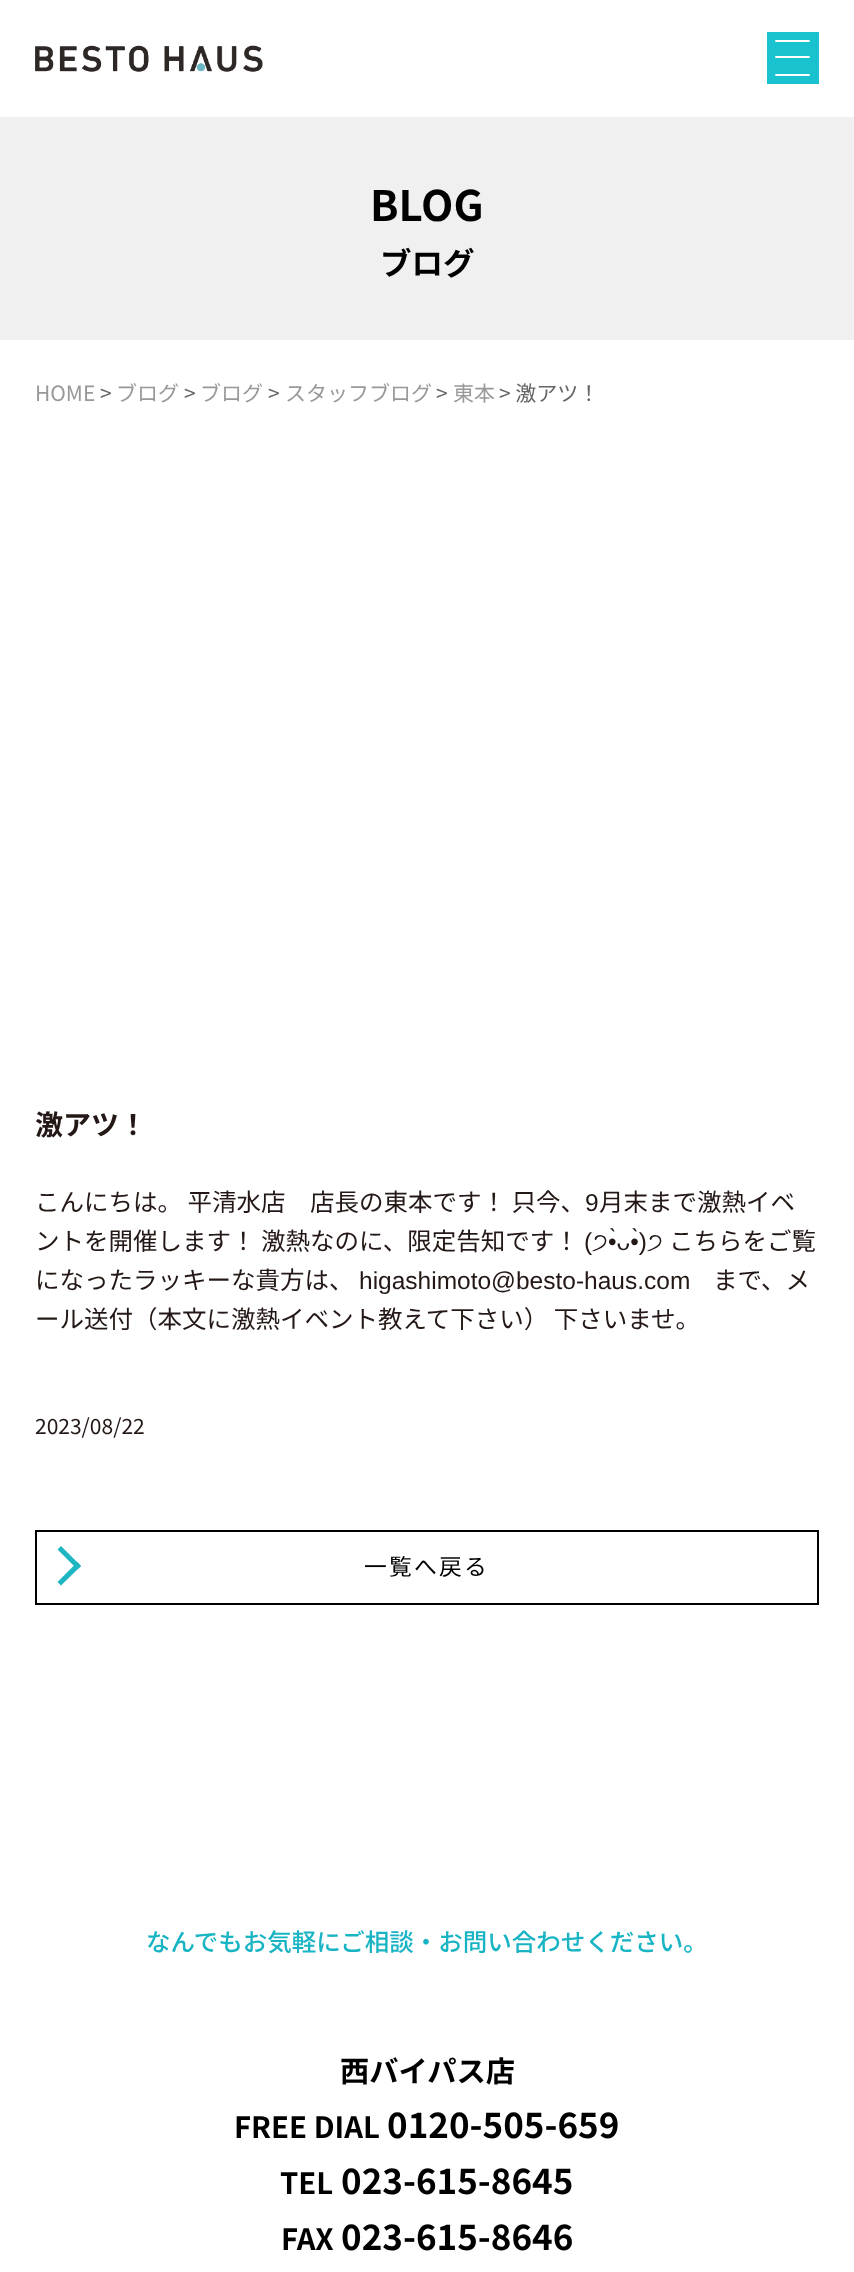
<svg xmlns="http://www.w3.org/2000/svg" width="854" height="2272">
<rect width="100%" height="100%" fill="#fff"/>
<image x="35" y="45" width="228" height="27" href="media/1.png"/>
<rect x="767" y="32" width="52" height="52" fill="#18c2cf"/>
<rect x="775" y="40" width="35" height="2" rx="1" fill="#fff"/>
<rect x="775" y="56" width="35" height="2" rx="1" fill="#fff"/>
<rect x="775" y="74" width="35" height="2" rx="1" fill="#fff"/>
<rect y="117" width="854" height="223" fill="#f0f0f0"/>
<text x="370" y="221" style="font-family:Noto Sans JP;font-size:42px;font-weight:bold;fill:#000">BLOG</text>
<text x="380" y="275" style="font-family:Noto Sans JP;font-size:31.5px;font-weight:bold;fill:#000">ブログ</text>
<text x="35" y="401" style="font-family:Noto Sans JP;font-size:21px;fill:#999">HOME</text>
<text x="100" y="401" style="font-family:Noto Sans JP;font-size:21px;fill:#666">&gt;</text>
<text x="116" y="401" style="font-family:Noto Sans JP;font-size:21px;fill:#999">ブログ</text>
<text x="184" y="401" style="font-family:Noto Sans JP;font-size:21px;fill:#666">&gt;</text>
<text x="200" y="401" style="font-family:Noto Sans JP;font-size:21px;fill:#999">ブログ</text>
<text x="268" y="401" style="font-family:Noto Sans JP;font-size:21px;fill:#666">&gt;</text>
<text x="285" y="401" style="font-family:Noto Sans JP;font-size:21px;fill:#999">スタッフブログ</text>
<text x="436" y="401" style="font-family:Noto Sans JP;font-size:21px;fill:#666">&gt;</text>
<text x="453" y="401" style="font-family:Noto Sans JP;font-size:21px;fill:#999">東本</text>
<text x="499" y="401" style="font-family:Noto Sans JP;font-size:21px;fill:#666">&gt; 激アツ！</text>
<text x="35" y="1135" style="font-family:Noto Sans JP;font-size:28px;font-weight:bold;fill:#231815">激アツ！</text>
<text x="35" y="1211" style="font-family:Noto Sans JP;font-size:24.5px;fill:#231815">こんにちは。 平清水店　店長の東本です！ 只今、</text>
<text x="585" y="1211" style="font-family:Liberation Sans;font-size:24.5px;fill:#231815">9</text>
<text x="599" y="1211" style="font-family:Noto Sans JP;font-size:24.5px;fill:#231815">月末まで激熱イベ</text>
<text x="35" y="1250" style="font-family:Noto Sans JP;font-size:24.5px;fill:#231815">ントを開催します！ 激熱なのに、限定告知です！</text>
<text x="584" y="1250" style="font-family:Liberation Sans;font-size:24.5px;fill:#231815">(</text>
<text x="592" y="1250" style="font-family:FreeSans;font-size:24.5px;fill:#231815">੭</text>
<text x="608" y="1250" style="font-family:Liberation Sans;font-size:24.5px;fill:#231815">•̀ᴗ•̀)</text>
<text x="647" y="1250" style="font-family:FreeSans;font-size:24.5px;fill:#231815">੭</text>
<text x="669" y="1250" style="font-family:Noto Sans JP;font-size:24.5px;fill:#231815">こちらをご覧</text>
<text x="35" y="1289" style="font-family:Noto Sans JP;font-size:24.5px;fill:#231815">になったラッキーな貴方は、</text>
<text x="359" y="1289" style="font-family:Liberation Sans;font-size:24.5px;fill:#231815">higashimoto@besto-haus.com</text>
<text x="713" y="1289" style="font-family:Noto Sans JP;font-size:24.5px;fill:#231815">まで、メ</text>
<text x="35" y="1328" style="font-family:Noto Sans JP;font-size:24.5px;fill:#231815">ール送付（本文に激熱イベント教えて下さい） 下さいませ。</text>
<text x="35" y="1434" style="font-family:Noto Sans JP;font-size:21px;fill:#231815">2023/08/22</text>
<rect x="36" y="1531" width="782" height="73" fill="none" stroke="#000" stroke-width="2"/>
<path d="M61 1546l20 20l-3.5 3.5l-20-20z" fill="#1fb6c4"/>
<path d="M77.5 1562l3.5 4l-20 19.5l-3.5-3.5z" fill="#1fb6c4"/>
<text x="364" y="1575" style="font-family:Noto Sans JP;font-size:22.75px;letter-spacing:2.25px;fill:#000">一覧へ戻る</text>
<text x="146" y="1951" style="font-family:Noto Sans JP;font-size:24.5px;font-weight:500;fill:#19b4c3">なんでもお気軽にご相談・お問い合わせください。</text>
<text x="340" y="2082" style="font-family:Noto Sans JP;font-size:29.25px;font-weight:bold;fill:#000">西バイパス店</text>
<text x="234" y="2138" style="font-family:Noto Sans JP;font-size:29.25px;font-weight:bold;fill:#000">FREE DIAL</text>
<text x="387" y="2138" style="font-family:Noto Sans JP;font-size:35px;font-weight:bold;fill:#000">0120-505-659</text>
<text x="280" y="2194" style="font-family:Noto Sans JP;font-size:29.25px;font-weight:bold;fill:#000">TEL</text>
<text x="341" y="2194" style="font-family:Noto Sans JP;font-size:35px;font-weight:bold;fill:#000">023-615-8645</text>
<text x="281" y="2250" style="font-family:Noto Sans JP;font-size:29.25px;font-weight:bold;fill:#000">FAX</text>
<text x="341" y="2250" style="font-family:Noto Sans JP;font-size:35px;font-weight:bold;fill:#000">023-615-8646</text>
</svg>
